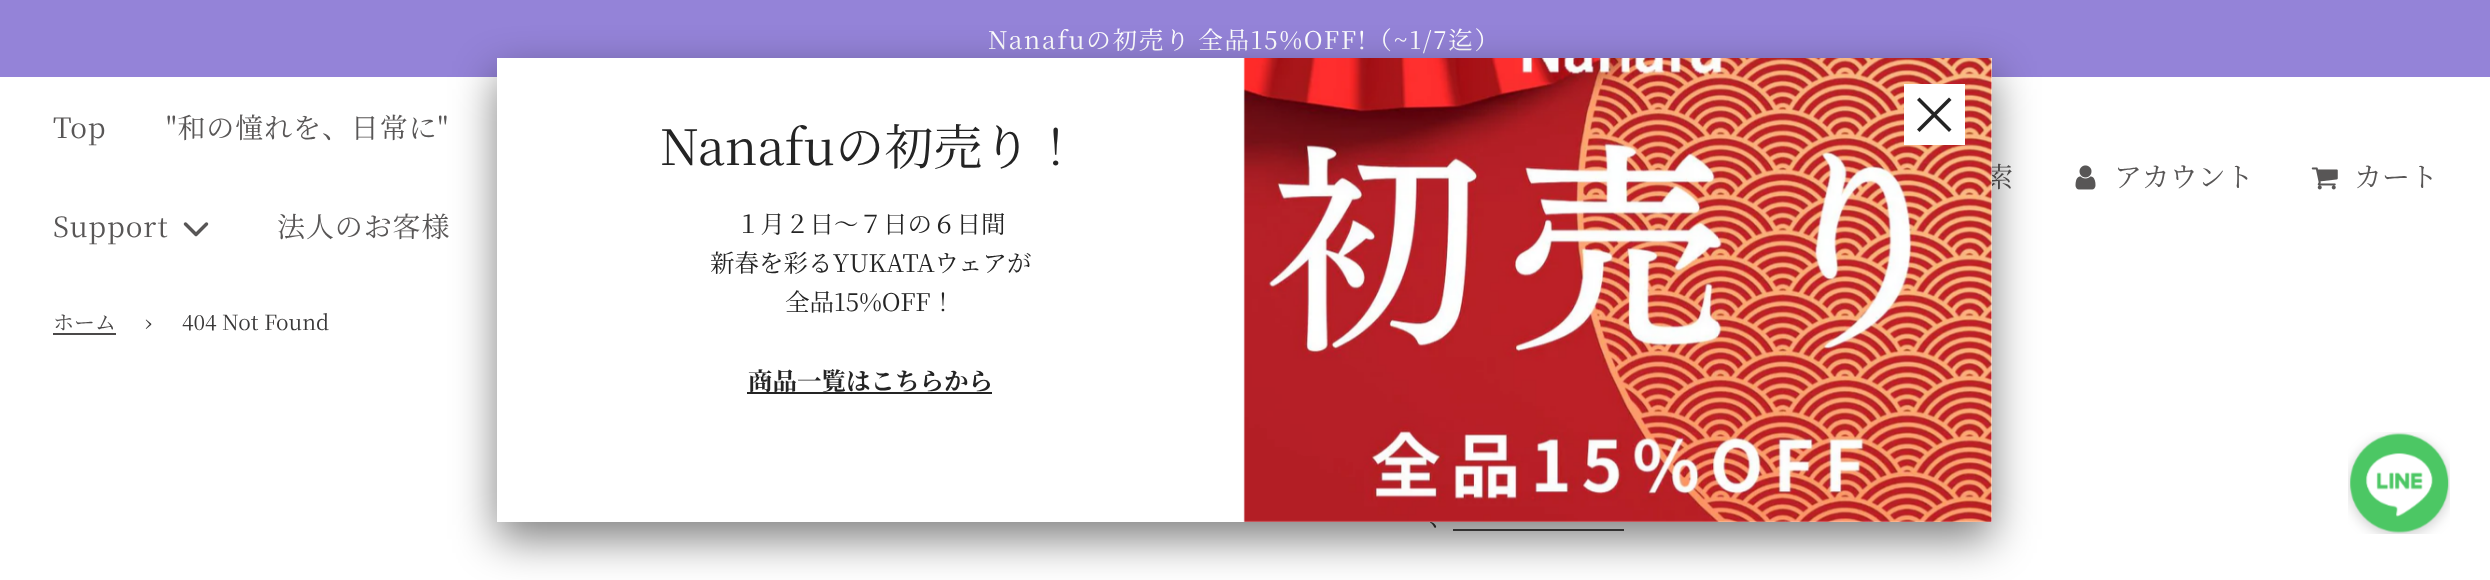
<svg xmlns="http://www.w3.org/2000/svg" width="2490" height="580">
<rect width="100%" height="100%" fill="#fff"/>
<rect width="2490" height="77" fill="#9483d8"/>
<text x="988" y="49" word-spacing="-1" style="font-family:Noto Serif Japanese;font-size:24.5px;letter-spacing:1.75px;fill:#fff">Nanafuの初売り 全品15%OFF!（~1/7迄）</text>
<text x="53" y="138" style="font-family:Noto Serif Japanese;font-size:28px;letter-spacing:0.9px;fill:#585656">Top</text>
<text x="166" y="138" style="font-family:Noto Serif Japanese;font-size:28px;letter-spacing:0.9px;fill:#585656">"和の憧れを、日常に"</text>
<text x="53" y="237" style="font-family:Noto Serif Japanese;font-size:28px;letter-spacing:0.9px;fill:#585656">Support</text>
<path d="M185.5 224l10.5 10.5l10.5-10.5" fill="none" stroke="#585656" stroke-width="3.5" stroke-linecap="round" stroke-linejoin="round"/>
<text x="277" y="237" style="font-family:Noto Serif Japanese;font-size:28px;letter-spacing:0.9px;fill:#585656">法人のお客様</text>
<text x="1985" y="187" style="font-family:Noto Serif Japanese;font-size:28px;fill:#585656">索</text>
<image x="2075" y="165" width="21" height="25" href="media/1.png"/>
<text x="2114" y="187" style="font-family:Noto Serif Japanese;font-size:28px;fill:#585656">アカウント</text>
<image x="2311" y="167" width="27" height="23" href="media/2.png"/>
<text x="2354" y="187" style="font-family:Noto Serif Japanese;font-size:28px;fill:#585656">カート</text>
<text x="53" y="330" style="font-family:Noto Serif Japanese;font-size:21px;fill:#4b4949">ホーム</text>
<rect x="53" y="333" width="63" height="2" fill="#4b4949"/>
<text x="145" y="330" style="font-family:Noto Serif Japanese;font-size:21px;fill:#393838">›</text>
<text x="182" y="330" style="font-family:Noto Serif Japanese;font-size:21px;fill:#393838">404 Not Found</text>
<text x="1429" y="526" style="font-family:Noto Serif Japanese;font-size:24.5px;fill:#393838">、</text>
<rect x="1453" y="529" width="171" height="2" fill="#4b4949"/>
<rect x="497" y="75" width="1495" height="464" fill="#00000080" filter="blur(22px)"/>
<rect x="497" y="58" width="1495" height="464" fill="#fff"/>
<image x="1243" y="58" width="749" height="464" href="media/3.png"/>
<rect x="1904" y="84" width="61" height="61" fill="#fff"/>
<path d="M1949 97.5l2.5 2.5l-32 32l-2.5-2.5z" fill="#242424"/>
<path d="M1917 100l2.5-2.5l32 32l-2.5 2.5z" fill="#242424"/>
<text x="660" y="165" style="font-family:Noto Serif Japanese;font-size:49px;fill:#242424">Nanafuの初売り！</text>
<text x="736" y="233" style="font-family:Noto Serif Japanese;font-size:24.5px;fill:#242424">１月２日〜７日の６日間</text>
<text x="710" y="272" style="font-family:Noto Serif Japanese;font-size:24.5px;fill:#242424">新春を彩るYUKATAウェアが</text>
<text x="785" y="311" style="font-family:Noto Serif Japanese;font-size:24.5px;fill:#242424">全品15%OFF！</text>
<rect x="747" y="392" width="245" height="2" fill="#242424"/>
<text x="748" y="390" style="font-family:Noto Serif Japanese;font-size:24.5px;font-weight:bold;fill:#242424">商品一覧はこちらから</text>
<image x="2348" y="432" width="102" height="102" href="media/4.png"/>
</svg>
